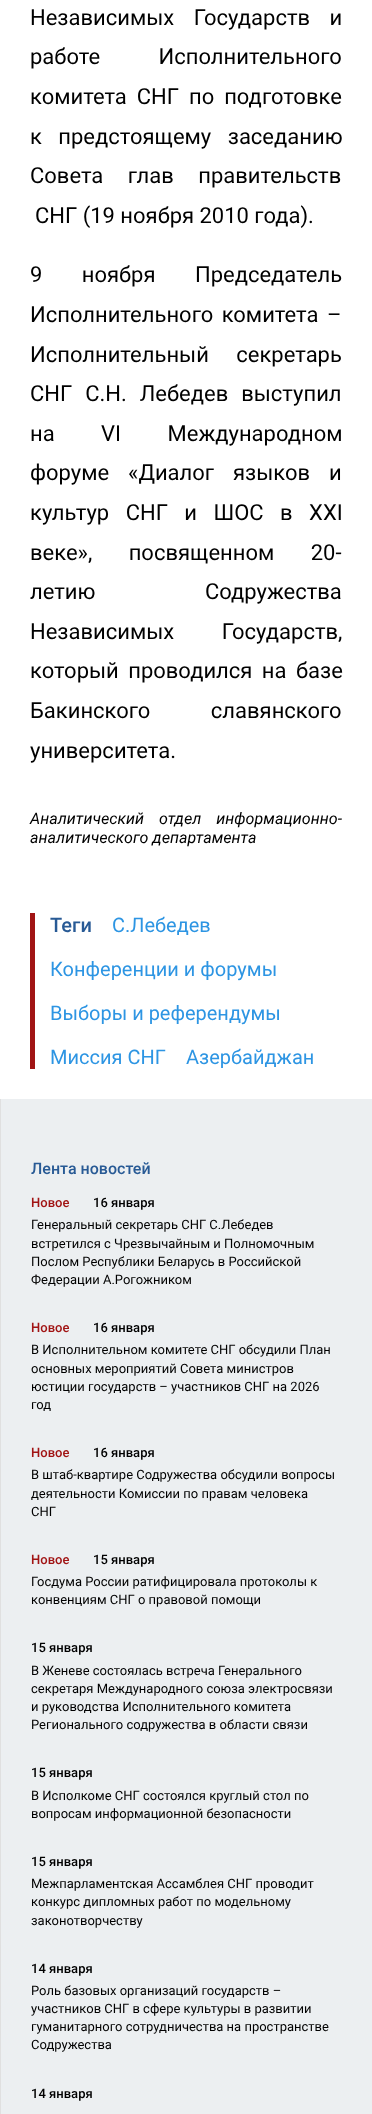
<svg xmlns="http://www.w3.org/2000/svg" width="372" height="2114">
<rect width="100%" height="100%" fill="#fff"/>
<text x="30" y="25" word-spacing="14" style="font-family:Roboto;font-size:22px;fill:#000">Независимых Государств и</text>
<text x="30" y="64" word-spacing="53" style="font-family:Roboto;font-size:22px;fill:#000">работе Исполнительного</text>
<text x="30" y="104" word-spacing="4.5" style="font-family:Roboto;font-size:22px;fill:#000">комитета СНГ по подготовке</text>
<text x="30" y="144" word-spacing="11" style="font-family:Roboto;font-size:22px;fill:#000">к предстоящему заседанию</text>
<text x="30" y="183" word-spacing="19" style="font-family:Roboto;font-size:22px;fill:#000">Совета глав правительств</text>
<text x="35" y="223" style="font-family:Roboto;font-size:22px;fill:#000">СНГ (19 ноября 2010 года).</text>
<text x="30" y="282" word-spacing="34" style="font-family:Roboto;font-size:22px;fill:#000">9 ноября Председатель</text>
<text x="30" y="322" word-spacing="3" style="font-family:Roboto;font-size:22px;fill:#000">Исполнительного комитета –</text>
<text x="30" y="362" word-spacing="22" style="font-family:Roboto;font-size:22px;fill:#000">Исполнительный секретарь</text>
<text x="30" y="401" word-spacing="7.5" style="font-family:Roboto;font-size:22px;fill:#000">СНГ С.Н. Лебедев выступил</text>
<text x="30" y="441" word-spacing="41" style="font-family:Roboto;font-size:22px;fill:#000">на VI Международном</text>
<text x="30" y="480" word-spacing="13.5" style="font-family:Roboto;font-size:22px;fill:#000">форуме «Диалог языков и</text>
<text x="30" y="520" word-spacing="11" style="font-family:Roboto;font-size:22px;fill:#000">культур СНГ и ШОС в XXI</text>
<text x="30" y="560" word-spacing="31" style="font-family:Roboto;font-size:22px;fill:#000">веке», посвященном 20-</text>
<text x="30" y="599" word-spacing="104" style="font-family:Roboto;font-size:22px;fill:#000">летию Содружества</text>
<text x="30" y="639" word-spacing="42" style="font-family:Roboto;font-size:22px;fill:#000">Независимых Государств,</text>
<text x="30" y="678" word-spacing="4" style="font-family:Roboto;font-size:22px;fill:#000">который проводился на базе</text>
<text x="30" y="718" word-spacing="55" style="font-family:Roboto;font-size:22px;fill:#000">Бакинского славянского</text>
<text x="30" y="758" style="font-family:Roboto;font-size:22px;fill:#000">университета.</text>
<text x="30" y="824" word-spacing="11" style="font-family:Roboto;font-size:16px;font-style:italic;fill:#000">Аналитический отдел информационно-</text>
<text x="30" y="843" style="font-family:Roboto;font-size:16px;font-style:italic;fill:#000">аналитического департамента</text>
<rect x="30" y="913" width="5" height="156" fill="#a11414"/>
<text x="50" y="932" style="font-family:Roboto;font-size:20px;font-weight:500;fill:#285a95">Теги</text>
<text x="112" y="932" style="font-family:Roboto;font-size:20px;fill:#2d95e3">С.Лебедев</text>
<text x="50" y="976" style="font-family:Roboto;font-size:20px;fill:#2d95e3">Конференции и форумы</text>
<text x="50" y="1020" style="font-family:Roboto;font-size:20px;fill:#2d95e3">Выборы и референдумы</text>
<text x="50" y="1064" style="font-family:Roboto;font-size:20px;fill:#2d95e3">Миссия СНГ</text>
<text x="186" y="1064" style="font-family:Roboto;font-size:20px;fill:#2d95e3">Азербайджан</text>
<rect x="1" y="1099" width="371" height="1015" fill="#eceff1"/>
<rect y="1099" width="1" height="1015" fill="#e0e0e0"/>
<text x="31" y="1174" style="font-family:Roboto;font-size:16px;font-weight:500;fill:#285a95">Лента новостей</text>
<text x="31" y="1207" style="font-family:Roboto;font-size:13px;font-weight:500;fill:#a11414">Новое</text>
<text x="93" y="1207" style="font-family:Roboto;font-size:13px;font-weight:500;fill:#000">16 января</text>
<text x="31" y="1229" style="font-family:Roboto;font-size:13px;fill:#000">Генеральный секретарь СНГ С.Лебедев</text>
<text x="31" y="1248" style="font-family:Roboto;font-size:13px;fill:#000">встретился с Чрезвычайным и Полномочным</text>
<text x="31" y="1266" style="font-family:Roboto;font-size:13px;fill:#000">Послом Республики Беларусь в Российской</text>
<text x="31" y="1284" style="font-family:Roboto;font-size:13px;fill:#000">Федерации А.Рогожником</text>
<text x="31" y="1332" style="font-family:Roboto;font-size:13px;font-weight:500;fill:#a11414">Новое</text>
<text x="93" y="1332" style="font-family:Roboto;font-size:13px;font-weight:500;fill:#000">16 января</text>
<text x="31" y="1354" style="font-family:Roboto;font-size:13px;fill:#000">В Исполнительном комитете СНГ обсудили План</text>
<text x="31" y="1373" style="font-family:Roboto;font-size:13px;fill:#000">основных мероприятий Совета министров</text>
<text x="31" y="1391" style="font-family:Roboto;font-size:13px;fill:#000">юстиции государств – участников СНГ на 2026</text>
<text x="31" y="1409" style="font-family:Roboto;font-size:13px;fill:#000">год</text>
<text x="31" y="1457" style="font-family:Roboto;font-size:13px;font-weight:500;fill:#a11414">Новое</text>
<text x="93" y="1457" style="font-family:Roboto;font-size:13px;font-weight:500;fill:#000">16 января</text>
<text x="31" y="1479" style="font-family:Roboto;font-size:13px;fill:#000">В штаб-квартире Содружества обсудили вопросы</text>
<text x="31" y="1498" style="font-family:Roboto;font-size:13px;fill:#000">деятельности Комиссии по правам человека</text>
<text x="31" y="1516" style="font-family:Roboto;font-size:13px;fill:#000">СНГ</text>
<text x="31" y="1564" style="font-family:Roboto;font-size:13px;font-weight:500;fill:#a11414">Новое</text>
<text x="93" y="1564" style="font-family:Roboto;font-size:13px;font-weight:500;fill:#000">15 января</text>
<text x="31" y="1586" style="font-family:Roboto;font-size:13px;fill:#000">Госдума России ратифицировала протоколы к</text>
<text x="31" y="1604" style="font-family:Roboto;font-size:13px;fill:#000">конвенциям СНГ о правовой помощи</text>
<text x="31" y="1652" style="font-family:Roboto;font-size:13px;font-weight:500;fill:#000">15 января</text>
<text x="31" y="1675" style="font-family:Roboto;font-size:13px;fill:#000">В Женеве состоялась встреча Генерального</text>
<text x="31" y="1693" style="font-family:Roboto;font-size:13px;fill:#000">секретаря Международного союза электросвязи</text>
<text x="31" y="1711" style="font-family:Roboto;font-size:13px;fill:#000">и руководства Исполнительного комитета</text>
<text x="31" y="1729" style="font-family:Roboto;font-size:13px;fill:#000">Регионального содружества в области связи</text>
<text x="31" y="1777" style="font-family:Roboto;font-size:13px;font-weight:500;fill:#000">15 января</text>
<text x="31" y="1800" style="font-family:Roboto;font-size:13px;fill:#000">В Исполкоме СНГ состоялся круглый стол по</text>
<text x="31" y="1818" style="font-family:Roboto;font-size:13px;fill:#000">вопросам информационной безопасности</text>
<text x="31" y="1866" style="font-family:Roboto;font-size:13px;font-weight:500;fill:#000">15 января</text>
<text x="31" y="1888" style="font-family:Roboto;font-size:13px;fill:#000">Межпарламентская Ассамблея СНГ проводит</text>
<text x="31" y="1906" style="font-family:Roboto;font-size:13px;fill:#000">конкурс дипломных работ по модельному</text>
<text x="31" y="1925" style="font-family:Roboto;font-size:13px;fill:#000">законотворчеству</text>
<text x="31" y="1973" style="font-family:Roboto;font-size:13px;font-weight:500;fill:#000">14 января</text>
<text x="31" y="1995" style="font-family:Roboto;font-size:13px;fill:#000">Роль базовых организаций государств –</text>
<text x="31" y="2013" style="font-family:Roboto;font-size:13px;fill:#000">участников СНГ в сфере культуры в развитии</text>
<text x="31" y="2031" style="font-family:Roboto;font-size:13px;fill:#000">гуманитарного сотрудничества на пространстве</text>
<text x="31" y="2049" style="font-family:Roboto;font-size:13px;fill:#000">Содружества</text>
<text x="31" y="2098" style="font-family:Roboto;font-size:13px;font-weight:500;fill:#000">14 января</text>
</svg>
